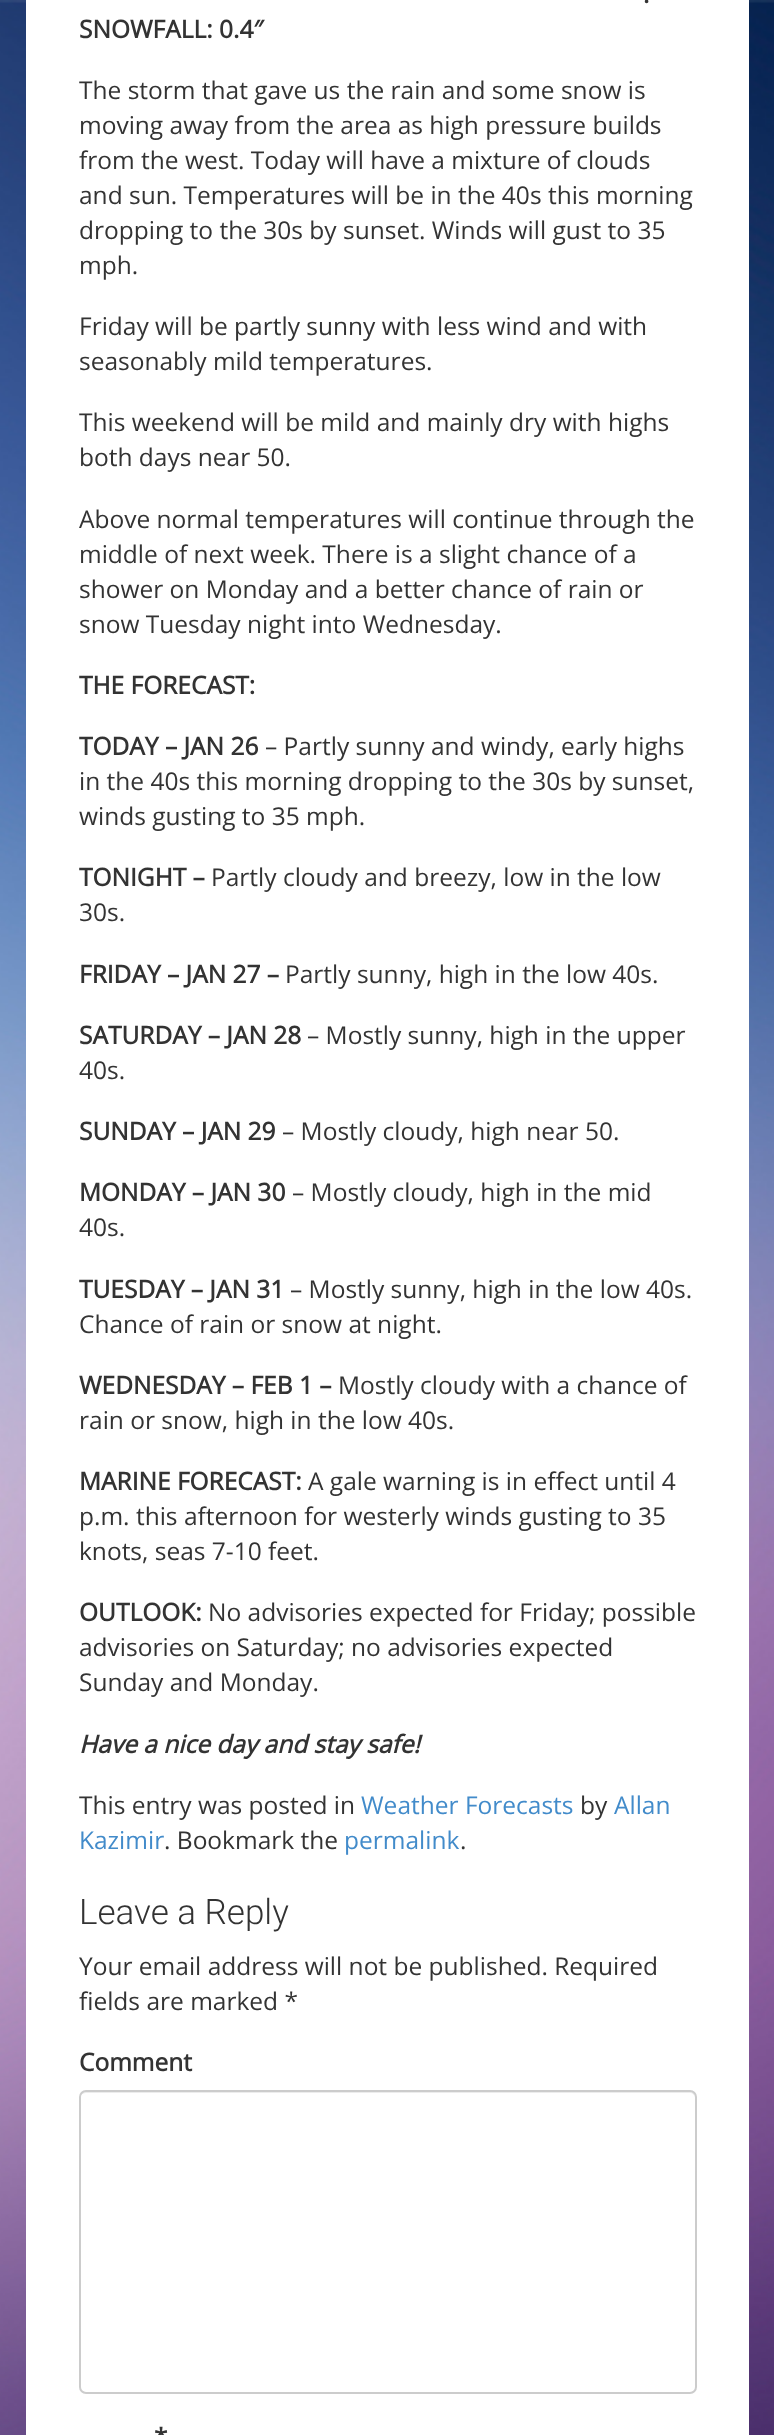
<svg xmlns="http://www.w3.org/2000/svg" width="774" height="2435">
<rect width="100%" height="100%" fill="#fff"/>
<image x="0" y="0" width="774" height="2435" href="media/1.png"/>
<rect x="26" width="723" height="2435" fill="#fff"/>
<text x="643" y="3" style="font-family:Open Sans;font-size:24.5px;font-weight:bold;fill:#333">.</text>
<text x="79" y="38" style="font-family:Open Sans;font-size:24.5px;font-weight:bold;fill:#333">SNOWFALL: 0.4″</text>
<text x="79" y="99" style="font-family:Open Sans;font-size:24.5px;fill:#333">The storm that gave us the rain and some snow is</text>
<text x="79" y="134" style="font-family:Open Sans;font-size:24.5px;fill:#333">moving away from the area as high pressure builds</text>
<text x="79" y="169" style="font-family:Open Sans;font-size:24.5px;fill:#333">from the west. Today will have a mixture of clouds</text>
<text x="79" y="204" style="font-family:Open Sans;font-size:24.5px;fill:#333">and sun. Temperatures will be in the 40s this morning</text>
<text x="79" y="239" style="font-family:Open Sans;font-size:24.5px;fill:#333">dropping to the 30s by sunset. Winds will gust to 35</text>
<text x="79" y="274" style="font-family:Open Sans;font-size:24.5px;fill:#333">mph.</text>
<text x="79" y="335" style="font-family:Open Sans;font-size:24.5px;fill:#333">Friday will be partly sunny with less wind and with</text>
<text x="79" y="370" style="font-family:Open Sans;font-size:24.5px;fill:#333">seasonably mild temperatures.</text>
<text x="79" y="431" style="font-family:Open Sans;font-size:24.5px;fill:#333">This weekend will be mild and mainly dry with highs</text>
<text x="79" y="466" style="font-family:Open Sans;font-size:24.5px;fill:#333">both days near 50.</text>
<text x="79" y="528" style="font-family:Open Sans;font-size:24.5px;fill:#333">Above normal temperatures will continue through the</text>
<text x="79" y="563" style="font-family:Open Sans;font-size:24.5px;fill:#333">middle of next week. There is a slight chance of a</text>
<text x="79" y="598" style="font-family:Open Sans;font-size:24.5px;fill:#333">shower on Monday and a better chance of rain or</text>
<text x="79" y="633" style="font-family:Open Sans;font-size:24.5px;fill:#333">snow Tuesday night into Wednesday.</text>
<text x="79" y="694" style="font-family:Open Sans;font-size:24.5px;font-weight:bold;fill:#333">THE FORECAST:</text>
<text x="79" y="755" style="font-family:Open Sans;font-size:24.5px;font-weight:bold;fill:#333">TODAY – JAN 26</text>
<text x="265" y="755" style="font-family:Open Sans;font-size:24.5px;fill:#333">– Partly sunny and windy, early highs</text>
<text x="79" y="790" style="font-family:Open Sans;font-size:24.5px;fill:#333">in the 40s this morning dropping to the 30s by sunset,</text>
<text x="79" y="825" style="font-family:Open Sans;font-size:24.5px;fill:#333">winds gusting to 35 mph.</text>
<text x="79" y="886" style="font-family:Open Sans;font-size:24.5px;font-weight:bold;fill:#333">TONIGHT –</text>
<text x="211" y="886" style="font-family:Open Sans;font-size:24.5px;fill:#333">Partly cloudy and breezy, low in the low</text>
<text x="79" y="921" style="font-family:Open Sans;font-size:24.5px;fill:#333">30s.</text>
<text x="79" y="983" style="font-family:Open Sans;font-size:24.5px;font-weight:bold;fill:#333">FRIDAY – JAN 27 –</text>
<text x="285" y="983" style="font-family:Open Sans;font-size:24.5px;fill:#333">Partly sunny, high in the low 40s.</text>
<text x="79" y="1044" style="font-family:Open Sans;font-size:24.5px;font-weight:bold;fill:#333">SATURDAY – JAN 28</text>
<text x="307" y="1044" style="font-family:Open Sans;font-size:24.5px;fill:#333">– Mostly sunny, high in the upper</text>
<text x="79" y="1079" style="font-family:Open Sans;font-size:24.5px;fill:#333">40s.</text>
<text x="79" y="1140" style="font-family:Open Sans;font-size:24.5px;font-weight:bold;fill:#333">SUNDAY – JAN 29</text>
<text x="282" y="1140" style="font-family:Open Sans;font-size:24.5px;fill:#333">– Mostly cloudy, high near 50.</text>
<text x="79" y="1201" style="font-family:Open Sans;font-size:24.5px;font-weight:bold;fill:#333">MONDAY – JAN 30</text>
<text x="292" y="1201" style="font-family:Open Sans;font-size:24.5px;fill:#333">– Mostly cloudy, high in the mid</text>
<text x="79" y="1236" style="font-family:Open Sans;font-size:24.5px;fill:#333">40s.</text>
<text x="79" y="1298" style="font-family:Open Sans;font-size:24.5px;font-weight:bold;fill:#333">TUESDAY – JAN 31</text>
<text x="290" y="1298" style="font-family:Open Sans;font-size:24.5px;fill:#333">– Mostly sunny, high in the low 40s.</text>
<text x="79" y="1333" style="font-family:Open Sans;font-size:24.5px;fill:#333">Chance of rain or snow at night.</text>
<text x="79" y="1394" style="font-family:Open Sans;font-size:24.5px;font-weight:bold;fill:#333">WEDNESDAY – FEB 1 –</text>
<text x="338" y="1394" style="font-family:Open Sans;font-size:24.5px;fill:#333">Mostly cloudy with a chance of</text>
<text x="79" y="1429" style="font-family:Open Sans;font-size:24.5px;fill:#333">rain or snow, high in the low 40s.</text>
<text x="79" y="1490" style="font-family:Open Sans;font-size:24.5px;font-weight:bold;fill:#333">MARINE FORECAST:</text>
<text x="308" y="1490" style="font-family:Open Sans;font-size:24.5px;fill:#333">A gale warning is in effect until 4</text>
<text x="79" y="1525" style="font-family:Open Sans;font-size:24.5px;fill:#333">p.m. this afternoon for westerly winds gusting to 35</text>
<text x="79" y="1560" style="font-family:Open Sans;font-size:24.5px;fill:#333">knots, seas 7-10 feet.</text>
<text x="79" y="1621" style="font-family:Open Sans;font-size:24.5px;font-weight:bold;fill:#333">OUTLOOK:</text>
<text x="208" y="1621" style="font-family:Open Sans;font-size:24.5px;fill:#333">No advisories expected for Friday; possible</text>
<text x="79" y="1656" style="font-family:Open Sans;font-size:24.5px;fill:#333">advisories on Saturday; no advisories expected</text>
<text x="79" y="1691" style="font-family:Open Sans;font-size:24.5px;fill:#333">Sunday and Monday.</text>
<text x="79" y="1753" style="font-family:Open Sans;font-size:24.5px;font-weight:bold;font-style:italic;fill:#333">Have a nice day and stay safe!</text>
<text x="79" y="1814" style="font-family:Open Sans;font-size:24.5px;fill:#333">This entry was posted in</text>
<text x="361" y="1814" style="font-family:Open Sans;font-size:24.5px;fill:#428bca">Weather Forecasts</text>
<text x="580" y="1814" style="font-family:Open Sans;font-size:24.5px;fill:#333">by</text>
<text x="614" y="1814" style="font-family:Open Sans;font-size:24.5px;fill:#428bca">Allan</text>
<text x="79" y="1849" style="font-family:Open Sans;font-size:24.5px;fill:#428bca">Kazimir</text>
<text x="164" y="1849" style="font-family:Open Sans;font-size:24.5px;fill:#333">. Bookmark the</text>
<text x="344" y="1849" style="font-family:Open Sans;font-size:24.5px;fill:#428bca">permalink</text>
<text x="460" y="1849" style="font-family:Open Sans;font-size:24.5px;fill:#333">.</text>
<text x="79" y="1924" style="font-family:Roboto;font-size:35px;font-weight:300;fill:#333">Leave a Reply</text>
<text x="79" y="1975" style="font-family:Open Sans;font-size:24.5px;fill:#333">Your email address will not be published. Required</text>
<text x="79" y="2010" style="font-family:Open Sans;font-size:24.5px;fill:#333">fields are marked *</text>
<text x="79" y="2071" style="font-family:Open Sans;font-size:24.5px;font-weight:bold;fill:#333">Comment</text>
<path d="M86 2093h604c2 0 5 2 5 5c0-3-1-7-5-7h-604c-2 0-5 2-5 4c1-1 3-2 5-2z" fill="#ececec"/>
<rect x="80" y="2091" width="616" height="302" rx="6" fill="none" stroke="#ccc" stroke-width="2"/>
<text x="154" y="2446" style="font-family:Open Sans;font-size:24.5px;font-weight:bold;fill:#333">*</text>
</svg>
